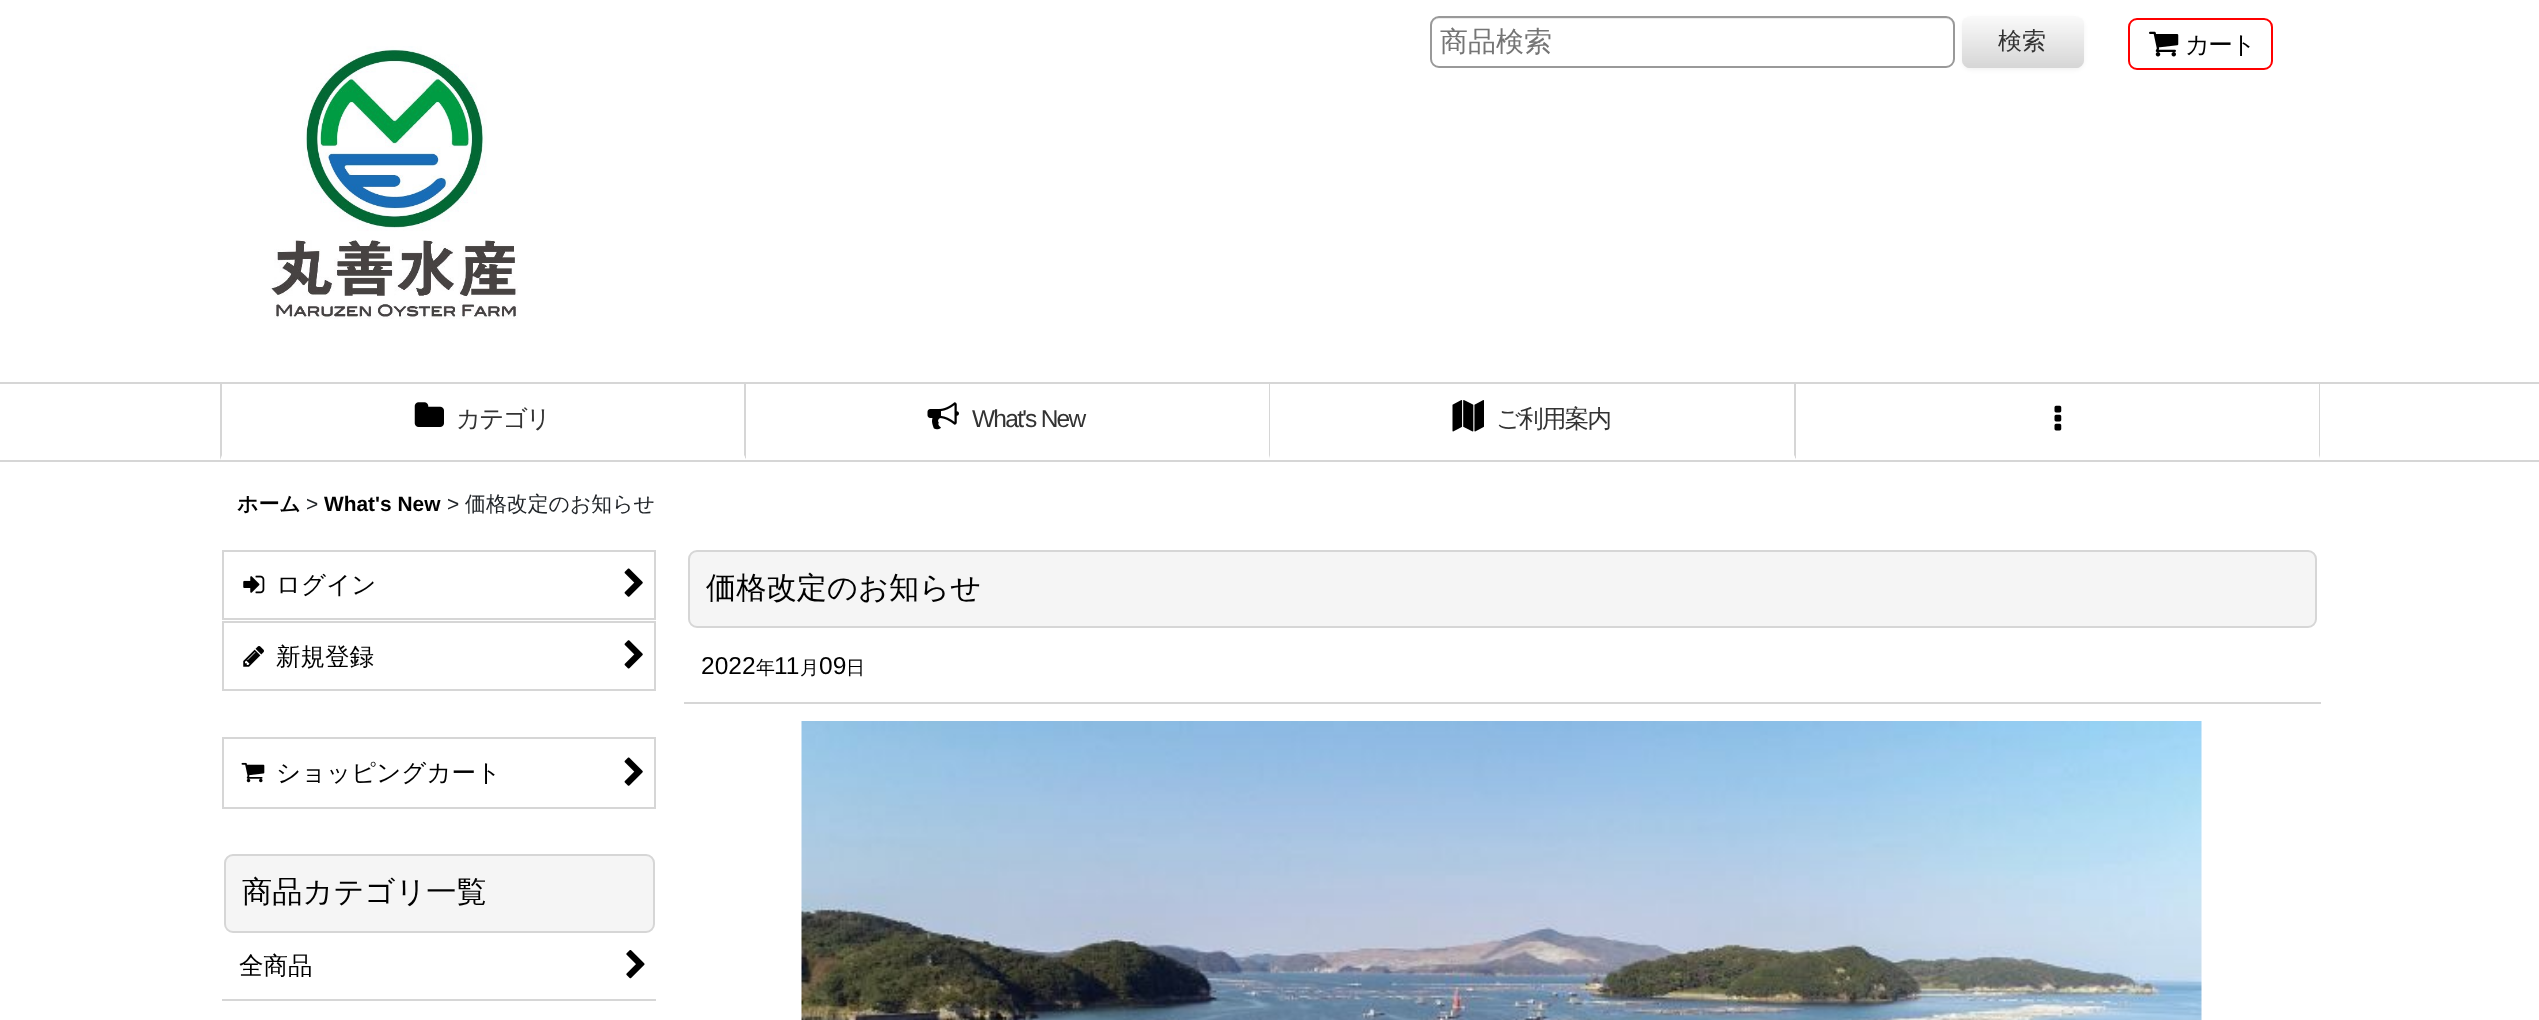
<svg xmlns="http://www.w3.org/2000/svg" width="2539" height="1020">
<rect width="100%" height="100%" fill="#fff"/>
<path d="M746 383v77l-2-5v-72z" fill="#d6d6d6"/>
<path d="M746 460h-526l2-5h522z" fill="#fff"/>
<path d="M220 460v-77h2v72z" fill="#d6d6d6"/>
<path d="M1270 383v77l-1-5v-72z" fill="#d6d6d6"/>
<path d="M1796 383v77l-2-5v-72z" fill="#d6d6d6"/>
<path d="M2320 383v77l-1-5v-72z" fill="#d6d6d6"/>
<rect y="382" width="2539" height="2" fill="#d6d6d6"/>
<path d="M1438 19h508c4 0 7 3 7 7c0-4-2-8-7-8h-507c-5 0-7 4-7 8c0-4 3-7 6-7z" fill="#ececec"/>
<rect x="1431" y="17" width="523" height="50" rx="8" fill="none" stroke="#999" stroke-width="2"/>
<text x="1440" y="51" style="font-family:WenQuanYi Zen Hei;font-size:28px;font-weight:500;fill:#757575">商品検索</text>
<rect x="1962" y="18" width="122" height="52" rx="9" fill="#0000000d" filter="blur(2px)"/>
<rect x="1962" y="16" width="122" height="52" rx="9" fill="#f9f9f9"/>
<image x="1962" y="18" width="122" height="50" href="media/1.png"/>
<text x="1998" y="49" style="font-family:WenQuanYi Zen Hei;font-size:24px;font-weight:500;fill:#333">検索</text>
<image x="270" y="46" width="248" height="273" href="media/2.png"/>
<rect x="2129" y="19" width="143" height="50" rx="8" fill="none" stroke="#f00" stroke-width="2"/>
<image x="2149" y="31" width="30" height="26" href="media/3.png"/>
<text x="2185" y="53" style="font-family:WenQuanYi Zen Hei;font-size:24.5px;font-weight:500;letter-spacing:-1.75px;fill:#000">カート</text>
<rect y="460" width="2539" height="2" fill="#d6d6d6"/>
<image x="414" y="402" width="30" height="25" href="media/4.png"/>
<text x="456" y="427" style="font-family:WenQuanYi Zen Hei;font-size:24.5px;font-weight:500;letter-spacing:-1.75px;fill:#333">カテゴリ</text>
<path d="M1270 460h-524v-5h523z" fill="#fff"/>
<image x="927" y="402" width="32" height="28" href="media/5.png"/>
<text x="972" y="427" style="font-family:Liberation Sans;font-size:24.5px;letter-spacing:-1.75px;fill:#333">What's New</text>
<path d="M1796 460h-526v-5h524z" fill="#fff"/>
<image x="1452" y="400" width="32" height="32" href="media/6.png"/>
<text x="1496" y="427" style="font-family:WenQuanYi Zen Hei;font-size:24.5px;font-weight:500;letter-spacing:-1.75px;fill:#333">ご利用案内</text>
<path d="M2320 460h-524v-5h523z" fill="#fff"/>
<image x="2054" y="405" width="8" height="26" href="media/7.png"/>
<text x="237" y="511" style="font-family:WenQuanYi Zen Hei;font-size:20.9px;font-weight:bold;fill:#000">ホーム</text>
<text x="306" y="511" style="font-family:Liberation Sans;font-size:20.9px;fill:#212529">&gt;</text>
<text x="324" y="511" style="font-family:Liberation Sans;font-size:20.9px;font-weight:bold;fill:#000">What's New</text>
<text x="447" y="511" style="font-family:Liberation Sans;font-size:20.9px;fill:#212529">&gt;</text>
<text x="465" y="511" style="font-family:WenQuanYi Zen Hei;font-size:20.9px;font-weight:500;fill:#212529">価格改定のお知らせ</text>
<rect x="223" y="551" width="432" height="68" fill="none" stroke="#d6d6d6" stroke-width="2"/>
<image x="243" y="575" width="22" height="19" href="media/8.png"/>
<text x="276" y="593" style="font-family:WenQuanYi Zen Hei;font-size:24.5px;font-weight:500;fill:#000">ログイン</text>
<image x="624" y="568" width="19" height="29" href="media/9.png"/>
<rect x="223" y="622" width="432" height="68" fill="none" stroke="#d6d6d6" stroke-width="2"/>
<image x="243" y="646" width="21" height="21" href="media/10.png"/>
<text x="276" y="665" style="font-family:WenQuanYi Zen Hei;font-size:24.5px;font-weight:500;fill:#000">新規登録</text>
<image x="624" y="640" width="19" height="29" href="media/11.png"/>
<rect x="223" y="738" width="432" height="70" fill="none" stroke="#d6d6d6" stroke-width="2"/>
<image x="241" y="762" width="24" height="21" href="media/12.png"/>
<text x="276" y="781" style="font-family:WenQuanYi Zen Hei;font-size:24.5px;font-weight:500;fill:#000">ショッピングカート</text>
<image x="624" y="757" width="19" height="29" href="media/9.png"/>
<rect x="225" y="855" width="429" height="77" rx="8" fill="#f5f5f5" stroke="#d6d6d6" stroke-width="2"/>
<text x="242" y="902" style="font-family:WenQuanYi Zen Hei;font-size:30.25px;font-weight:500;fill:#000">商品カテゴリ一覧</text>
<rect x="222" y="999" width="434" height="2" fill="#d6d6d6"/>
<text x="239" y="974" style="font-family:WenQuanYi Zen Hei;font-size:24.5px;font-weight:500;fill:#000">全商品</text>
<image x="626" y="950" width="19" height="29" href="media/13.png"/>
<rect x="689" y="551" width="1627" height="76" rx="8" fill="#f5f5f5" stroke="#d6d6d6" stroke-width="2"/>
<text x="706" y="598" style="font-family:WenQuanYi Zen Hei;font-size:30.25px;font-weight:500;fill:#000">価格改定のお知らせ</text>
<rect x="684" y="702" width="1637" height="2" fill="#d6d6d6"/>
<text x="701" y="674" style="font-family:Liberation Sans;font-size:24.5px;fill:#000">2022</text>
<text x="756" y="674" style="font-family:WenQuanYi Zen Hei;font-size:19px;font-weight:500;fill:#000">年</text>
<text x="774" y="674" style="font-family:Liberation Sans;font-size:24.5px;fill:#000">11</text>
<text x="800" y="674" style="font-family:WenQuanYi Zen Hei;font-size:19px;font-weight:500;fill:#000">月</text>
<text x="819" y="674" style="font-family:Liberation Sans;font-size:24.5px;fill:#000">09</text>
<text x="846" y="674" style="font-family:WenQuanYi Zen Hei;font-size:19px;font-weight:500;fill:#000">日</text>
<image x="801" y="721" width="1401" height="299" href="media/14.png"/>
</svg>
